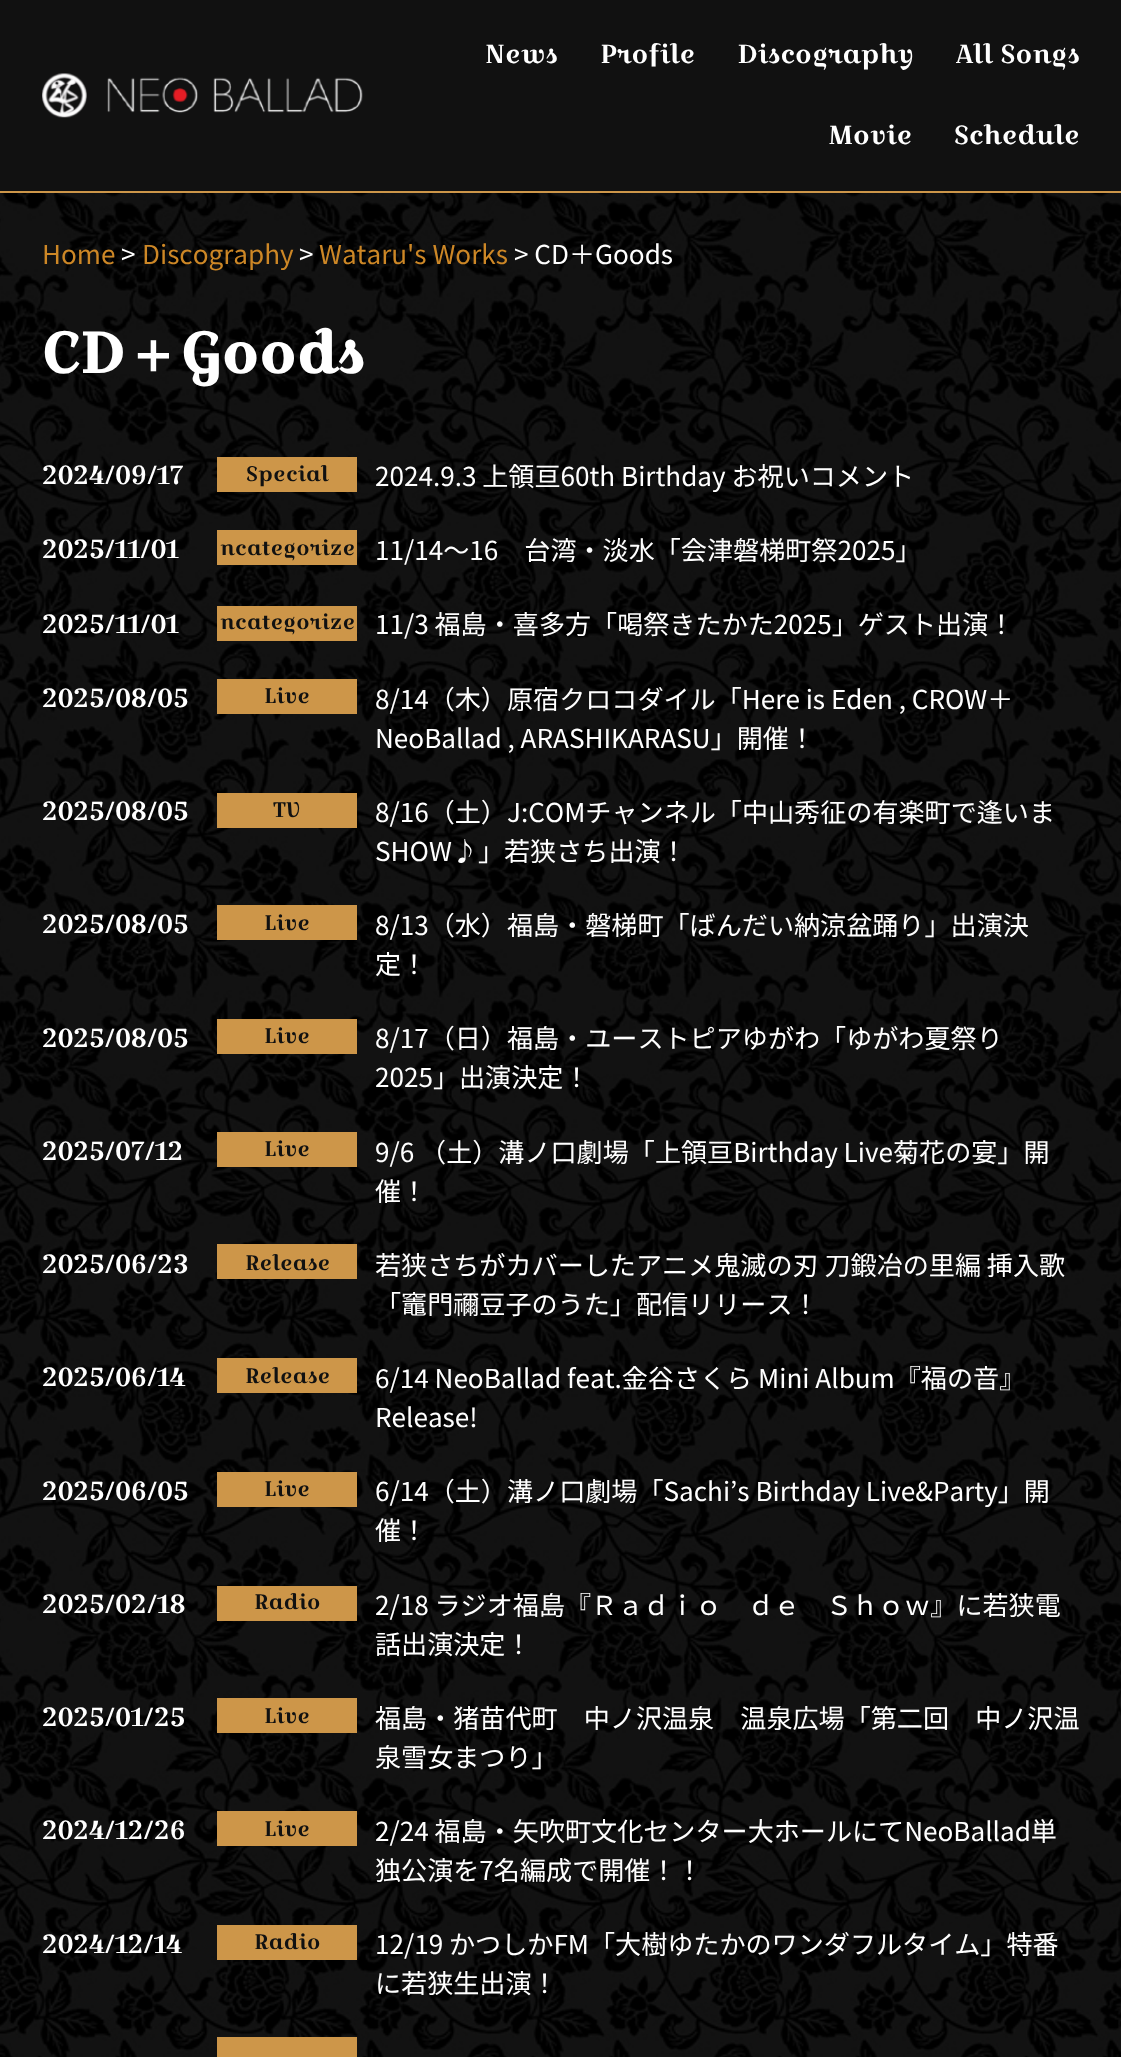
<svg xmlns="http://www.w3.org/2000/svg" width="1121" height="2057">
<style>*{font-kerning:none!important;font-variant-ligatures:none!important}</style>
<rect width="100%" height="100%" fill="#111"/>
<rect y="191" width="1121" height="2" fill="#cd9649"/>
<image x="42" y="73" width="321" height="45" href="media/1.png"/>
<text x="485" y="63" style="font-family:Croissant One;font-size:26.1px;fill:#fff">News</text>
<text x="600" y="63" style="font-family:Croissant One;font-size:26.1px;fill:#fff">Profile</text>
<text x="737" y="63" style="font-family:Croissant One;font-size:26.1px;fill:#fff">Discography</text>
<text x="956" y="63" style="font-family:Croissant One;font-size:26.1px;fill:#fff">All Songs</text>
<text x="829" y="144" style="font-family:Croissant One;font-size:26.1px;fill:#fff">Movie</text>
<text x="954" y="144" style="font-family:Croissant One;font-size:26.1px;fill:#fff">Schedule</text>
<image x="0" y="193" width="1121" height="1864" href="media/2.png"/>
<text x="42" y="264" style="font-family:Noto Sans JP;font-size:26.1px;fill:#cd8726">Home</text>
<text x="121" y="264" style="font-family:Noto Sans JP;font-size:26.1px;fill:#fff">&gt;</text>
<text x="142" y="264" style="font-family:Noto Sans JP;font-size:26.1px;fill:#cd8726">Discography</text>
<text x="299" y="264" style="font-family:Noto Sans JP;font-size:26.1px;fill:#fff">&gt;</text>
<text x="319" y="264" style="font-family:Noto Sans JP;font-size:26.1px;fill:#cd8726">Wataru's Works</text>
<text x="514" y="264" style="font-family:Noto Sans JP;font-size:26.1px;fill:#fff">&gt; CD＋Goods</text>
<text x="42" y="373" style="font-family:Croissant One;font-size:57px;font-weight:bold;fill:#fff">CD</text>
<text x="124" y="373" style="font-family:WenQuanYi Zen Hei;font-size:57px;font-weight:bold;fill:#fff">＋</text>
<text x="181" y="373" style="font-family:Croissant One;font-size:57px;font-weight:bold;fill:#fff">Goods</text>
<text x="42" y="484" style="font-family:Croissant One;font-size:26.1px;fill:#fff">2024/09/17</text>
<rect x="217" y="457" width="140" height="35" fill="#cd9649"/>
<text x="246" y="481" style="font-family:Croissant One;font-size:21px;fill:#111">Special</text>
<text x="375" y="486" style="font-family:Noto Sans JP;font-size:26.1px;fill:#fff">2024.9.3 上領亘60th Birthday お祝いコメント</text>
<text x="42" y="558" style="font-family:Croissant One;font-size:26.1px;fill:#fff">2025/11/01</text>
<rect x="217" y="530" width="140" height="35" fill="#cd9649"/>
<text x="220" y="555" style="font-family:Croissant One;font-size:21px;fill:#111">ncategorize</text>
<text x="375" y="560" style="font-family:Noto Sans JP;font-size:26.1px;fill:#fff">11/14〜16　台湾・淡水「会津磐梯町祭2025」</text>
<text x="42" y="633" style="font-family:Croissant One;font-size:26.1px;fill:#fff">2025/11/01</text>
<rect x="217" y="606" width="140" height="35" fill="#cd9649"/>
<text x="220" y="629" style="font-family:Croissant One;font-size:21px;fill:#111">ncategorize</text>
<text x="375" y="634" style="font-family:Noto Sans JP;font-size:26.1px;fill:#fff">11/3 福島・喜多方「喝祭きたかた2025」ゲスト出演！</text>
<text x="42" y="707" style="font-family:Croissant One;font-size:26.1px;fill:#fff">2025/08/05</text>
<rect x="217" y="679" width="140" height="35" fill="#cd9649"/>
<text x="264" y="703" style="font-family:Croissant One;font-size:21px;fill:#111">Live</text>
<text x="375" y="709" style="font-family:Noto Sans JP;font-size:26.1px;fill:#fff">8/14（木）原宿クロコダイル「Here is Eden , CROW＋</text>
<text x="375" y="748" style="font-family:Noto Sans JP;font-size:26.1px;fill:#fff">NeoBallad , ARASHIKARASU」開催！</text>
<text x="42" y="820" style="font-family:Croissant One;font-size:26.1px;fill:#fff">2025/08/05</text>
<rect x="217" y="793" width="140" height="35" fill="#cd9649"/>
<text x="273" y="817" style="font-family:Croissant One;font-size:21px;fill:#111">TV</text>
<text x="375" y="822" style="font-family:Noto Sans JP;font-size:26.1px;fill:#fff">8/16（土）J:COMチャンネル「中山秀征の有楽町で逢いま</text>
<text x="375" y="861" style="font-family:Noto Sans JP;font-size:26.1px;fill:#fff">SHOW♪」若狭さち出演！</text>
<text x="42" y="933" style="font-family:Croissant One;font-size:26.1px;fill:#fff">2025/08/05</text>
<rect x="217" y="905" width="140" height="35" fill="#cd9649"/>
<text x="264" y="930" style="font-family:Croissant One;font-size:21px;fill:#111">Live</text>
<text x="375" y="935" style="font-family:Noto Sans JP;font-size:26.1px;fill:#fff">8/13（水）福島・磐梯町「ばんだい納涼盆踊り」出演決</text>
<text x="375" y="974" style="font-family:Noto Sans JP;font-size:26.1px;fill:#fff">定！</text>
<text x="42" y="1047" style="font-family:Croissant One;font-size:26.1px;fill:#fff">2025/08/05</text>
<rect x="217" y="1019" width="140" height="35" fill="#cd9649"/>
<text x="264" y="1043" style="font-family:Croissant One;font-size:21px;fill:#111">Live</text>
<text x="375" y="1048" style="font-family:Noto Sans JP;font-size:26.1px;fill:#fff">8/17（日）福島・ユーストピアゆがわ「ゆがわ夏祭り</text>
<text x="375" y="1087" style="font-family:Noto Sans JP;font-size:26.1px;fill:#fff">2025」出演決定！</text>
<text x="42" y="1160" style="font-family:Croissant One;font-size:26.1px;fill:#fff">2025/07/12</text>
<rect x="217" y="1132" width="140" height="35" fill="#cd9649"/>
<text x="264" y="1156" style="font-family:Croissant One;font-size:21px;fill:#111">Live</text>
<text x="375" y="1162" style="font-family:Noto Sans JP;font-size:26.1px;fill:#fff">9/6 （土）溝ノ口劇場「上領亘Birthday Live菊花の宴」開</text>
<text x="375" y="1201" style="font-family:Noto Sans JP;font-size:26.1px;fill:#fff">催！</text>
<text x="42" y="1273" style="font-family:Croissant One;font-size:26.1px;fill:#fff">2025/06/23</text>
<rect x="217" y="1244" width="140" height="35" fill="#cd9649"/>
<text x="245" y="1270" style="font-family:Croissant One;font-size:21px;fill:#111">Release</text>
<text x="375" y="1275" style="font-family:Noto Sans JP;font-size:26.1px;fill:#fff">若狭さちがカバーしたアニメ鬼滅の刃 刀鍛冶の里編 挿入歌</text>
<text x="375" y="1314" style="font-family:Noto Sans JP;font-size:26.1px;fill:#fff">「竈門禰豆子のうた」配信リリース！</text>
<text x="42" y="1386" style="font-family:Croissant One;font-size:26.1px;fill:#fff">2025/06/14</text>
<rect x="217" y="1358" width="140" height="35" fill="#cd9649"/>
<text x="245" y="1383" style="font-family:Croissant One;font-size:21px;fill:#111">Release</text>
<text x="375" y="1388" style="font-family:Noto Sans JP;font-size:26.1px;fill:#fff">6/14 NeoBallad feat.金谷さくら Mini Album『福の音』</text>
<text x="375" y="1427" style="font-family:Noto Sans JP;font-size:26.1px;fill:#fff">Release!</text>
<text x="42" y="1500" style="font-family:Croissant One;font-size:26.1px;fill:#fff">2025/06/05</text>
<rect x="217" y="1472" width="140" height="35" fill="#cd9649"/>
<text x="264" y="1496" style="font-family:Croissant One;font-size:21px;fill:#111">Live</text>
<text x="375" y="1501" style="font-family:Noto Sans JP;font-size:26.1px;fill:#fff">6/14（土）溝ノ口劇場「Sachi’s Birthday Live&amp;Party」開</text>
<text x="375" y="1540" style="font-family:Noto Sans JP;font-size:26.1px;fill:#fff">催！</text>
<text x="42" y="1613" style="font-family:Croissant One;font-size:26.1px;fill:#fff">2025/02/18</text>
<rect x="217" y="1586" width="140" height="35" fill="#cd9649"/>
<text x="254" y="1609" style="font-family:Croissant One;font-size:21px;fill:#111">Radio</text>
<text x="375" y="1615" style="font-family:Noto Sans JP;font-size:26.1px;fill:#fff">2/18 ラジオ福島『Ｒａｄｉｏ　ｄｅ　Ｓｈｏｗ』に若狭電</text>
<text x="375" y="1654" style="font-family:Noto Sans JP;font-size:26.1px;fill:#fff">話出演決定！</text>
<text x="42" y="1726" style="font-family:Croissant One;font-size:26.1px;fill:#fff">2025/01/25</text>
<rect x="217" y="1698" width="140" height="35" fill="#cd9649"/>
<text x="264" y="1723" style="font-family:Croissant One;font-size:21px;fill:#111">Live</text>
<text x="375" y="1728" style="font-family:Noto Sans JP;font-size:26.1px;fill:#fff">福島・猪苗代町　中ノ沢温泉　温泉広場「第二回　中ノ沢温</text>
<text x="375" y="1767" style="font-family:Noto Sans JP;font-size:26.1px;fill:#fff">泉雪女まつり」</text>
<text x="42" y="1839" style="font-family:Croissant One;font-size:26.1px;fill:#fff">2024/12/26</text>
<rect x="217" y="1811" width="140" height="35" fill="#cd9649"/>
<text x="264" y="1836" style="font-family:Croissant One;font-size:21px;fill:#111">Live</text>
<text x="375" y="1841" style="font-family:Noto Sans JP;font-size:26.1px;fill:#fff">2/24 福島・矢吹町文化センター大ホールにてNeoBallad単</text>
<text x="375" y="1880" style="font-family:Noto Sans JP;font-size:26.1px;fill:#fff">独公演を7名編成で開催！！</text>
<text x="42" y="1953" style="font-family:Croissant One;font-size:26.1px;fill:#fff">2024/12/14</text>
<rect x="217" y="1925" width="140" height="35" fill="#cd9649"/>
<text x="254" y="1949" style="font-family:Croissant One;font-size:21px;fill:#111">Radio</text>
<text x="375" y="1954" style="font-family:Noto Sans JP;font-size:26.1px;fill:#fff">12/19 かつしかFM「大樹ゆたかのワンダフルタイム」特番</text>
<text x="375" y="1993" style="font-family:Noto Sans JP;font-size:26.1px;fill:#fff">に若狭生出演！</text>
<rect x="217" y="2037" width="140" height="20" fill="#cd9649"/>
</svg>
